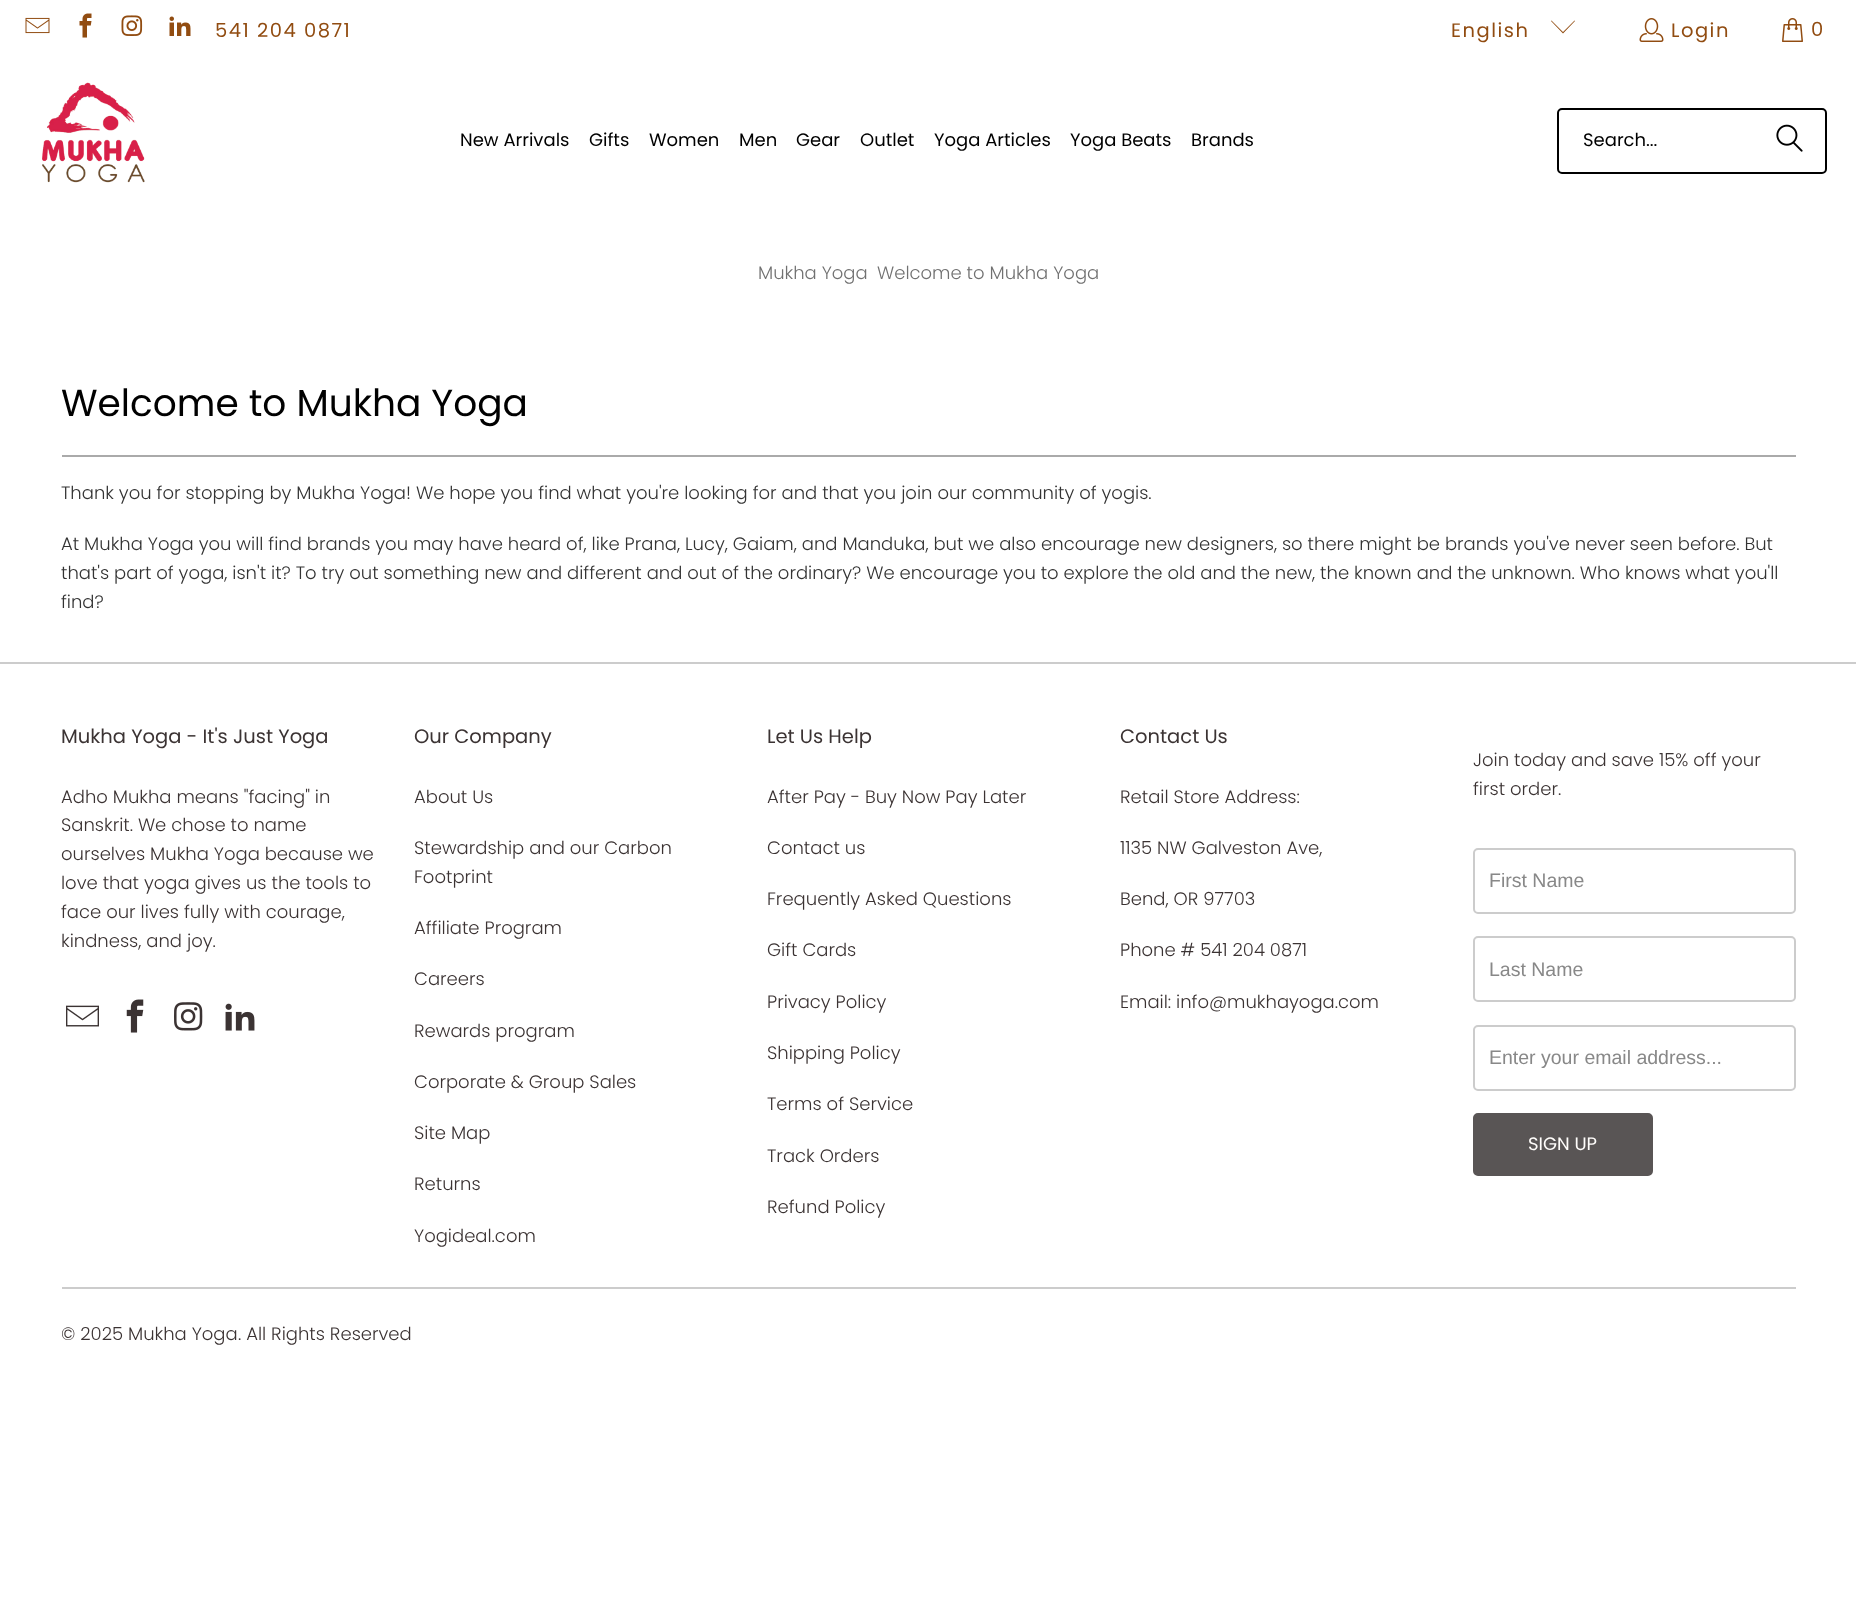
<svg xmlns="http://www.w3.org/2000/svg" width="1856" height="1624">
<rect width="100%" height="100%" fill="#fff"/>
<image x="25" y="17" width="25" height="17" href="media/1.png"/>
<image x="79" y="13" width="13" height="25" href="media/2.png"/>
<image x="121" y="15" width="22" height="21" href="media/3.png"/>
<image x="169" y="16" width="22" height="20" href="media/4.png"/>
<text x="215" y="37" style="font-family:Poppins;font-size:19.5px;letter-spacing:1.5px;fill:#914c11">541 204 0871</text>
<text x="1451" y="37" style="font-family:Poppins;font-size:19.5px;letter-spacing:1.5px;fill:#914c11">English</text>
<path d="M1563 33.5l-12-12.5l.5-.5l11.5 11.5l11.5-11.5l.5 .5z" fill="#914c11"/>
<image x="1639" y="18" width="25" height="24" href="media/5.png"/>
<text x="1671" y="37" style="font-family:Poppins;font-size:19.5px;letter-spacing:1.5px;fill:#914c11">Login</text>
<image x="1782" y="18" width="21" height="24" href="media/6.png"/>
<text x="1811" y="36" style="font-family:Poppins;font-size:19.5px;letter-spacing:1.5px;fill:#914c11">0</text>
<image x="42" y="82" width="103" height="101" href="media/7.png"/>
<text x="460" y="146" style="font-family:Poppins;font-size:18px;fill:#000">New Arrivals</text>
<text x="589" y="146" style="font-family:Poppins;font-size:18px;fill:#000">Gifts</text>
<text x="649" y="146" style="font-family:Poppins;font-size:18px;fill:#000">Women</text>
<text x="739" y="146" style="font-family:Poppins;font-size:18px;fill:#000">Men</text>
<text x="796" y="146" style="font-family:Poppins;font-size:18px;fill:#000">Gear</text>
<text x="860" y="146" style="font-family:Poppins;font-size:18px;fill:#000">Outlet</text>
<text x="934" y="146" style="font-family:Poppins;font-size:18px;fill:#000">Yoga Articles</text>
<text x="1070" y="146" style="font-family:Poppins;font-size:18px;fill:#000">Yoga Beats</text>
<text x="1191" y="146" style="font-family:Poppins;font-size:18px;fill:#000">Brands</text>
<rect x="1558" y="109" width="268" height="64" rx="4" fill="none" stroke="#000" stroke-width="2"/>
<text x="1583" y="146" style="font-family:Poppins;font-size:18px;fill:#000">Search...</text>
<image x="1776" y="124" width="27" height="28" href="media/8.png"/>
<text x="758" y="279" style="font-family:Poppins;font-size:18px;font-weight:300;fill:#717171">Mukha Yoga</text>
<text x="877" y="279" style="font-family:Poppins;font-size:18px;font-weight:300;fill:#717171">Welcome to Mukha Yoga</text>
<text x="61" y="416" style="font-family:Poppins;font-size:37.5px;fill:#000">Welcome to Mukha Yoga</text>
<rect x="62" y="455" width="1734" height="2" fill="#aaa"/>
<text x="61" y="499" style="font-family:Poppins;font-size:18px;font-weight:300;fill:#333">Thank you for stopping by Mukha Yoga! We hope you find what you're looking for and that you join our community of yogis.</text>
<text x="61" y="550" style="font-family:Poppins;font-size:18px;font-weight:300;fill:#333">At Mukha Yoga you will find brands you may have heard of, like Prana, Lucy, Gaiam, and Manduka, but we also encourage new designers, so there might be brands you've never seen before. But</text>
<text x="61" y="579" style="font-family:Poppins;font-size:18px;font-weight:300;fill:#333">that's part of yoga, isn't it? To try out something new and different and out of the ordinary? We encourage you to explore the old and the new, the known and the unknown. Who knows what you'll</text>
<text x="61" y="608" style="font-family:Poppins;font-size:18px;font-weight:300;fill:#333">find?</text>
<rect y="662" width="1856" height="2" fill="#ccc"/>
<text x="61" y="743" style="font-family:Poppins;font-size:19.5px;fill:#3b3333">Mukha Yoga - It's Just Yoga</text>
<text x="61" y="803" style="font-family:Poppins;font-size:18px;font-weight:300;fill:#3b3333">Adho Mukha means "facing" in</text>
<text x="61" y="831" style="font-family:Poppins;font-size:18px;font-weight:300;fill:#3b3333">Sanskrit. We chose to name</text>
<text x="61" y="860" style="font-family:Poppins;font-size:18px;font-weight:300;fill:#3b3333">ourselves Mukha Yoga because we</text>
<text x="61" y="889" style="font-family:Poppins;font-size:18px;font-weight:300;fill:#3b3333">love that yoga gives us the tools to</text>
<text x="61" y="918" style="font-family:Poppins;font-size:18px;font-weight:300;fill:#3b3333">face our lives fully with courage,</text>
<text x="61" y="947" style="font-family:Poppins;font-size:18px;font-weight:300;fill:#3b3333">kindness, and joy.</text>
<image x="66" y="1005" width="33" height="22" href="media/9.png"/>
<image x="126" y="999" width="18" height="34" href="media/10.png"/>
<image x="174" y="1002" width="29" height="29" href="media/11.png"/>
<image x="225" y="1003" width="30" height="28" href="media/12.png"/>
<text x="414" y="743" style="font-family:Poppins;font-size:19.5px;fill:#3b3333">Our Company</text>
<text x="414" y="803" style="font-family:Poppins;font-size:18px;font-weight:300;fill:#3b3333">About Us</text>
<text x="414" y="854" style="font-family:Poppins;font-size:18px;font-weight:300;fill:#3b3333">Stewardship and our Carbon</text>
<text x="414" y="883" style="font-family:Poppins;font-size:18px;font-weight:300;fill:#3b3333">Footprint</text>
<text x="414" y="934" style="font-family:Poppins;font-size:18px;font-weight:300;fill:#3b3333">Affiliate Program</text>
<text x="414" y="985" style="font-family:Poppins;font-size:18px;font-weight:300;fill:#3b3333">Careers</text>
<text x="414" y="1037" style="font-family:Poppins;font-size:18px;font-weight:300;fill:#3b3333">Rewards program</text>
<text x="414" y="1088" style="font-family:Poppins;font-size:18px;font-weight:300;fill:#3b3333">Corporate &amp; Group Sales</text>
<text x="414" y="1139" style="font-family:Poppins;font-size:18px;font-weight:300;fill:#3b3333">Site Map</text>
<text x="414" y="1190" style="font-family:Poppins;font-size:18px;font-weight:300;fill:#3b3333">Returns</text>
<text x="414" y="1242" style="font-family:Poppins;font-size:18px;font-weight:300;fill:#3b3333">Yogideal.com</text>
<text x="767" y="743" style="font-family:Poppins;font-size:19.5px;fill:#3b3333">Let Us Help</text>
<text x="767" y="803" style="font-family:Poppins;font-size:18px;font-weight:300;fill:#3b3333">After Pay - Buy Now Pay Later</text>
<text x="767" y="854" style="font-family:Poppins;font-size:18px;font-weight:300;fill:#3b3333">Contact us</text>
<text x="767" y="905" style="font-family:Poppins;font-size:18px;font-weight:300;fill:#3b3333">Frequently Asked Questions</text>
<text x="767" y="956" style="font-family:Poppins;font-size:18px;font-weight:300;fill:#3b3333">Gift Cards</text>
<text x="767" y="1008" style="font-family:Poppins;font-size:18px;font-weight:300;fill:#3b3333">Privacy Policy</text>
<text x="767" y="1059" style="font-family:Poppins;font-size:18px;font-weight:300;fill:#3b3333">Shipping Policy</text>
<text x="767" y="1110" style="font-family:Poppins;font-size:18px;font-weight:300;fill:#3b3333">Terms of Service</text>
<text x="767" y="1162" style="font-family:Poppins;font-size:18px;font-weight:300;fill:#3b3333">Track Orders</text>
<text x="767" y="1213" style="font-family:Poppins;font-size:18px;font-weight:300;fill:#3b3333">Refund Policy</text>
<text x="1120" y="743" style="font-family:Poppins;font-size:19.5px;fill:#3b3333">Contact Us</text>
<text x="1120" y="803" style="font-family:Poppins;font-size:18px;font-weight:300;fill:#3b3333">Retail Store Address:</text>
<text x="1120" y="854" style="font-family:Poppins;font-size:18px;font-weight:300;fill:#3b3333">1135 NW Galveston Ave,</text>
<text x="1120" y="905" style="font-family:Poppins;font-size:18px;font-weight:300;fill:#3b3333">Bend, OR 97703</text>
<text x="1120" y="956" style="font-family:Poppins;font-size:18px;font-weight:300;fill:#3b3333">Phone # 541 204 0871</text>
<text x="1120" y="1008" style="font-family:Poppins;font-size:18px;font-weight:300;fill:#3b3333">Email: info@mukhayoga.com</text>
<text x="1473" y="766" style="font-family:Poppins;font-size:18px;font-weight:300;fill:#3b3333">Join today and save 15% off your</text>
<text x="1473" y="795" style="font-family:Poppins;font-size:18px;font-weight:300;fill:#3b3333">first order.</text>
<rect x="1474" y="849" width="321" height="64" rx="4" fill="none" stroke="#ccc" stroke-width="2"/>
<text x="1489" y="887" style="font-family:Liberation Sans;font-size:19.5px;fill:#888">First Name</text>
<rect x="1474" y="937" width="321" height="64" rx="4" fill="none" stroke="#ccc" stroke-width="2"/>
<text x="1489" y="976" style="font-family:Liberation Sans;font-size:19.5px;fill:#888">Last Name</text>
<rect x="1474" y="1026" width="321" height="64" rx="4" fill="none" stroke="#ccc" stroke-width="2"/>
<text x="1489" y="1064" style="font-family:Liberation Sans;font-size:19.5px;fill:#888">Enter your email address...</text>
<rect x="1474" y="1114" width="178" height="61" rx="4" fill="#595555" stroke="#595555" stroke-width="2"/>
<text x="1528" y="1150" style="font-family:Poppins;font-size:18px;fill:#fffdfb">SIGN UP</text>
<rect x="62" y="1287" width="1734" height="2" fill="#ccc"/>
<text x="61" y="1340" style="font-family:Poppins;font-size:18px;font-weight:300;fill:#3b3333">© 2025 Mukha Yoga</text>
<text x="238" y="1340" style="font-family:Poppins;font-size:18px;font-weight:300;fill:#3b3333">. All Rights Reserved</text>
</svg>
